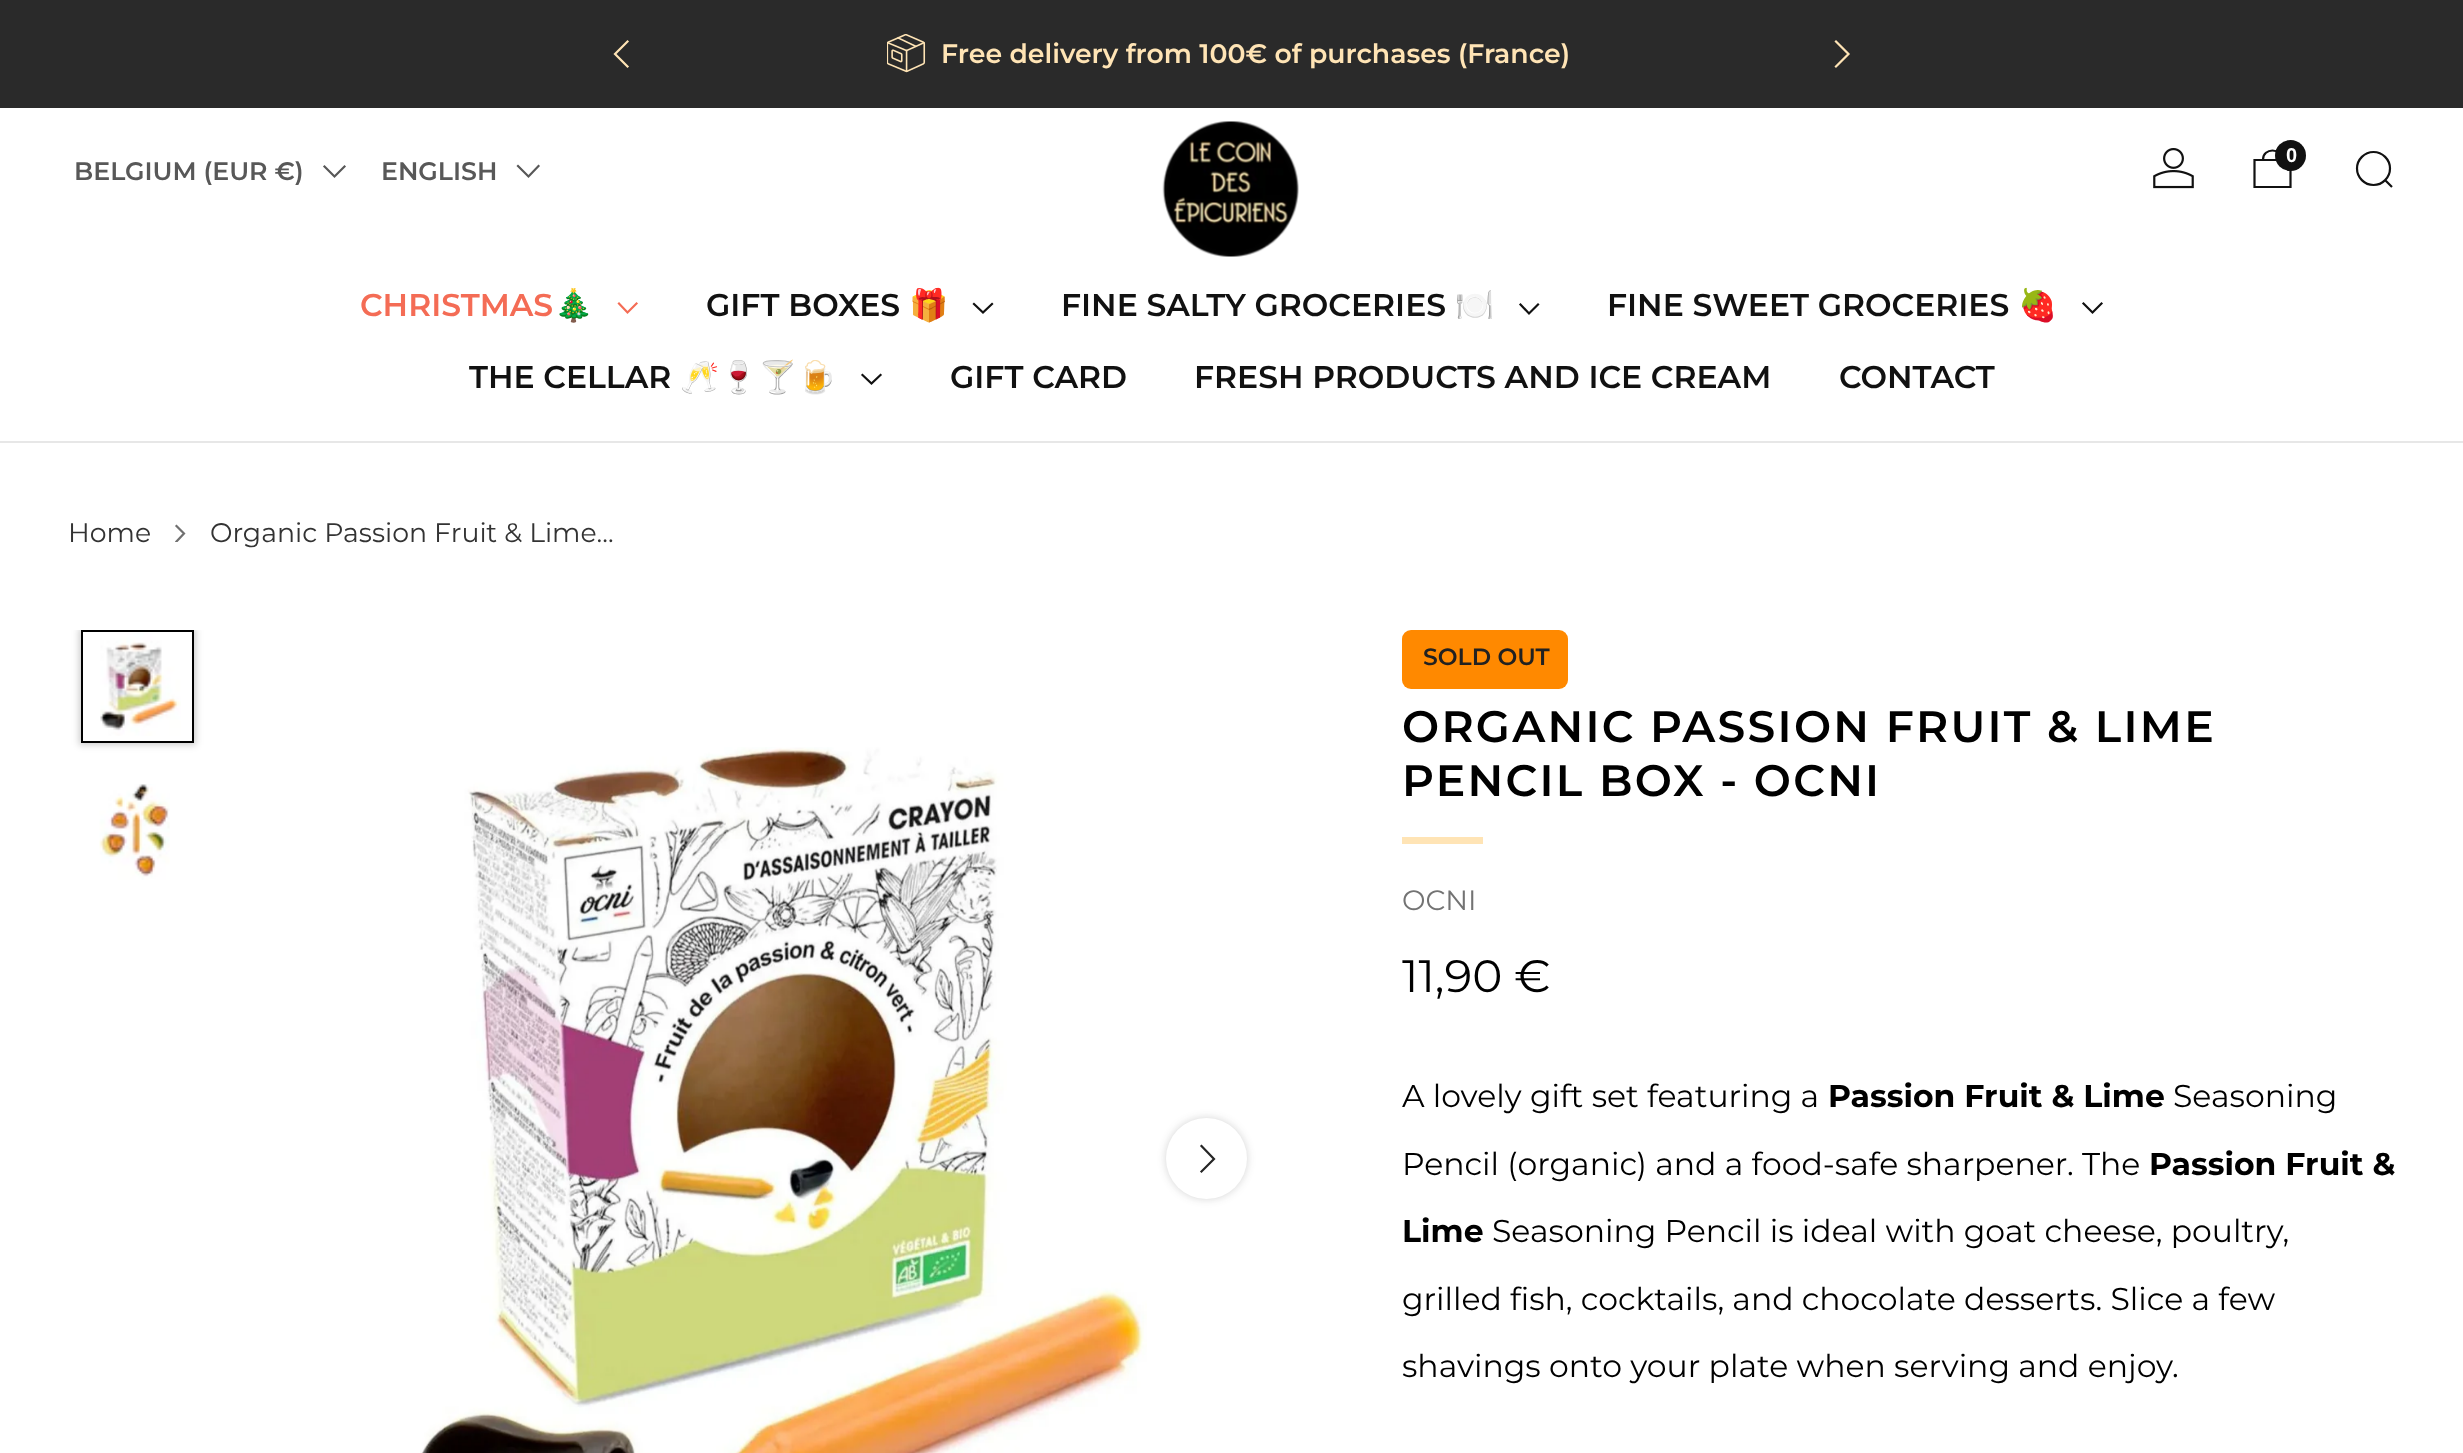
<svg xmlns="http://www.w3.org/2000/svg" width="2463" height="1453">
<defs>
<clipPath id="clip1"><rect x="171" y="524" width="18" height="18"/></clipPath>
<clipPath id="clip2"><rect x="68" y="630" width="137" height="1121"/></clipPath>
</defs>
<rect width="100%" height="100%" fill="#fff"/>
<rect width="2463" height="108" fill="#2a2a2a"/>
<path d="M627.5 66.5l-12.5-12.5l12.5-12.5" fill="none" stroke="#ffe4b5" stroke-width="2.2" stroke-linecap="square"/>
<image x="887" y="34" width="39" height="39" href="media/1.png"/>
<text x="941" y="63" style="font-family:Montserrat;font-size:26.75px;font-weight:600;fill:#ffe4b5">Free delivery from 100€ of purchases (France)</text>
<path d="M1836 41.5l12.5 12.5l-12.5 12.5" fill="none" stroke="#ffe4b5" stroke-width="2.2" stroke-linecap="square"/>
<rect y="441" width="2463" height="2" fill="#e7e7e7"/>
<image x="1162" y="121" width="137" height="136" href="media/2.png"/>
<image x="2153" y="148" width="41" height="41" href="media/3.png"/>
<path d="M2282 159.5c0-12-19-12-19 0m-8.5 .5h36v27h-36z" fill="none" stroke="#111" stroke-width="2.2"/>
<circle cx="2290.5" cy="155.5" r="15.5" fill="#111"/>
<text x="2286" y="162" style="font-family:Liberation Sans;font-size:20px;font-weight:bold;fill:#fff">0</text>
<path d="M2385 180l7 7m-2-18.5c0 9-7.5 16.5-16.5 16.5c-9 0-16.5-7.5-16.5-16.5c0-9 7.5-16.5 16.5-16.5c9 0 16.5 7.5 16.5 16.5z" fill="none" stroke="#111" stroke-width="2.2"/>
<text x="74" y="180" style="font-family:Montserrat;font-size:25.25px;font-weight:600;fill:#585858">BELGIUM (EUR €)</text>
<path d="M344.5 166.5l-10 10l-10-10" fill="none" stroke="#585858" stroke-width="2.2" stroke-linecap="square"/>
<text x="381" y="180" style="font-family:Montserrat;font-size:25.25px;font-weight:600;fill:#585858">ENGLISH</text>
<path d="M538.5 166l-10 10.5l-10.5-10.5" fill="none" stroke="#585858" stroke-width="2.2" stroke-linecap="square"/>
<text x="360" y="316" style="font-family:Montserrat;font-size:31.5px;font-weight:600;fill:#f46c55">CHRISTMAS</text>
<text x="554" y="316" style="font-family:Noto Color Emoji;font-size:31.5px;font-weight:bold;fill:#f46c55">🎄</text>
<path d="M636.5 303.5l-9 9l-8.5-9" fill="none" stroke="#f46c55" stroke-width="2.2" stroke-linecap="square"/>
<text x="706" y="316" style="font-family:Montserrat;font-size:31.5px;font-weight:600;fill:#111">GIFT BOXES</text>
<text x="909" y="316" style="font-family:Noto Color Emoji;font-size:31.5px;font-weight:bold;fill:#111">🎁</text>
<path d="M992 304l-9 8.5l-9-8.5" fill="none" stroke="#111" stroke-width="2.2" stroke-linecap="square"/>
<text x="1061" y="316" style="font-family:Montserrat;font-size:31.5px;font-weight:600;fill:#111">FINE SALTY GROCERIES</text>
<text x="1455" y="316" style="font-family:Noto Color Emoji;font-size:31.5px;font-weight:bold;fill:#111">🍽️</text>
<path d="M1538 304.5l-9 9l-8.5-9" fill="none" stroke="#111" stroke-width="2.2" stroke-linecap="square"/>
<text x="1607" y="316" style="font-family:Montserrat;font-size:31.5px;font-weight:600;fill:#111">FINE SWEET GROCERIES</text>
<text x="2018" y="316" style="font-family:Noto Color Emoji;font-size:31.5px;font-weight:bold;fill:#111">🍓</text>
<path d="M2101.5 303.5l-9 9l-9-9" fill="none" stroke="#111" stroke-width="2.2" stroke-linecap="square"/>
<text x="469" y="388" style="font-family:Montserrat;font-size:31.5px;font-weight:600;fill:#111">THE CELLAR</text>
<text x="680" y="388" style="font-family:Noto Color Emoji;font-size:31.5px;font-weight:bold;fill:#111">🥂🍷🍸🍺</text>
<path d="M880.5 375l-9 8.5l-9-8.5" fill="none" stroke="#111" stroke-width="2.2" stroke-linecap="square"/>
<text x="950" y="388" style="font-family:Montserrat;font-size:31.5px;font-weight:600;fill:#111">GIFT CARD</text>
<text x="1194" y="388" style="font-family:Montserrat;font-size:31.5px;font-weight:600;fill:#111">FRESH PRODUCTS AND ICE CREAM</text>
<text x="1839" y="388" style="font-family:Montserrat;font-size:31.5px;font-weight:600;fill:#111">CONTACT</text>
<text x="68" y="542" style="font-family:Montserrat;font-size:26.75px;font-weight:100;fill:#333">Home</text>
<g clip-path="url(#clip1)">
<path d="M176.5 526l7.5 7.5l-7.5 8" fill="none" stroke="#707070" stroke-width="2.2" stroke-linecap="square"/>
</g>
<text x="210" y="542" style="font-family:Montserrat;font-size:26.75px;font-weight:100;fill:#333">Organic Passion Fruit &amp; Lime...</text>
<g clip-path="url(#clip2)">
<rect x="79" y="628" width="117" height="117" fill="#00000033" filter="blur(3.5px)"/>
</g>
<rect x="82" y="631" width="111" height="111" fill="#fff" stroke="#000" stroke-width="2"/>
<image x="100" y="633" width="81" height="103" href="media/4.png"/>
<image x="99" y="784" width="71" height="96" href="media/5.png"/>
<image x="420" y="747" width="727" height="706" href="media/6.png"/>
<rect x="1166" y="1118" width="81" height="81" rx="40.5" fill="#26262633" filter="blur(4.5px)"/>
<circle cx="1206.5" cy="1158.5" r="40.5" fill="#fff"/>
<path d="M1201.5 1146l12.5 13l-12.5 12.5" fill="none" stroke="#262626" stroke-width="2.2" stroke-linecap="square"/>
<rect x="1402" y="630" width="166" height="59" rx="9" fill="#ff8900"/>
<text x="1423" y="665" style="font-family:Montserrat;font-size:23.5px;font-weight:600;fill:#212121">SOLD OUT</text>
<text x="1402" y="742" style="font-family:Montserrat;font-size:44.1px;font-weight:600;letter-spacing:2.25px;fill:#000">ORGANIC PASSION FRUIT &amp; LIME</text>
<text x="1402" y="796" style="font-family:Montserrat;font-size:44.1px;font-weight:600;letter-spacing:2.25px;fill:#000">PENCIL BOX - OCNI</text>
<rect x="1402" y="837" width="81" height="7" fill="#ffe4b5"/>
<text x="1402" y="910" style="font-family:Montserrat;font-size:28px;font-weight:100;fill:#737373">OCNI</text>
<text x="1402" y="992" style="font-family:Montserrat;font-size:45.5px;font-weight:100;fill:#000">11,90 €</text>
<text x="1402" y="1107" style="font-family:Montserrat;font-size:31.5px;font-weight:100;fill:#000">A lovely gift set featuring a</text>
<text x="1828" y="1107" style="font-family:Montserrat;font-size:31.5px;font-weight:bold;fill:#000">Passion Fruit &amp; Lime</text>
<text x="2173" y="1107" style="font-family:Montserrat;font-size:31.5px;font-weight:100;fill:#000">Seasoning</text>
<text x="1402" y="1175" style="font-family:Montserrat;font-size:31.5px;font-weight:100;fill:#000">Pencil (organic) and a food-safe sharpener. The</text>
<text x="2149" y="1175" style="font-family:Montserrat;font-size:31.5px;font-weight:bold;fill:#000">Passion Fruit &amp;</text>
<text x="1402" y="1242" style="font-family:Montserrat;font-size:31.5px;font-weight:bold;fill:#000">Lime</text>
<text x="1492" y="1242" style="font-family:Montserrat;font-size:31.5px;font-weight:100;fill:#000">Seasoning Pencil is ideal with goat cheese, poultry,</text>
<text x="1402" y="1310" style="font-family:Montserrat;font-size:31.5px;font-weight:100;fill:#000">grilled fish, cocktails, and chocolate desserts. Slice a few</text>
<text x="1402" y="1377" style="font-family:Montserrat;font-size:31.5px;font-weight:100;fill:#000">shavings onto your plate when serving and enjoy.</text>
</svg>
